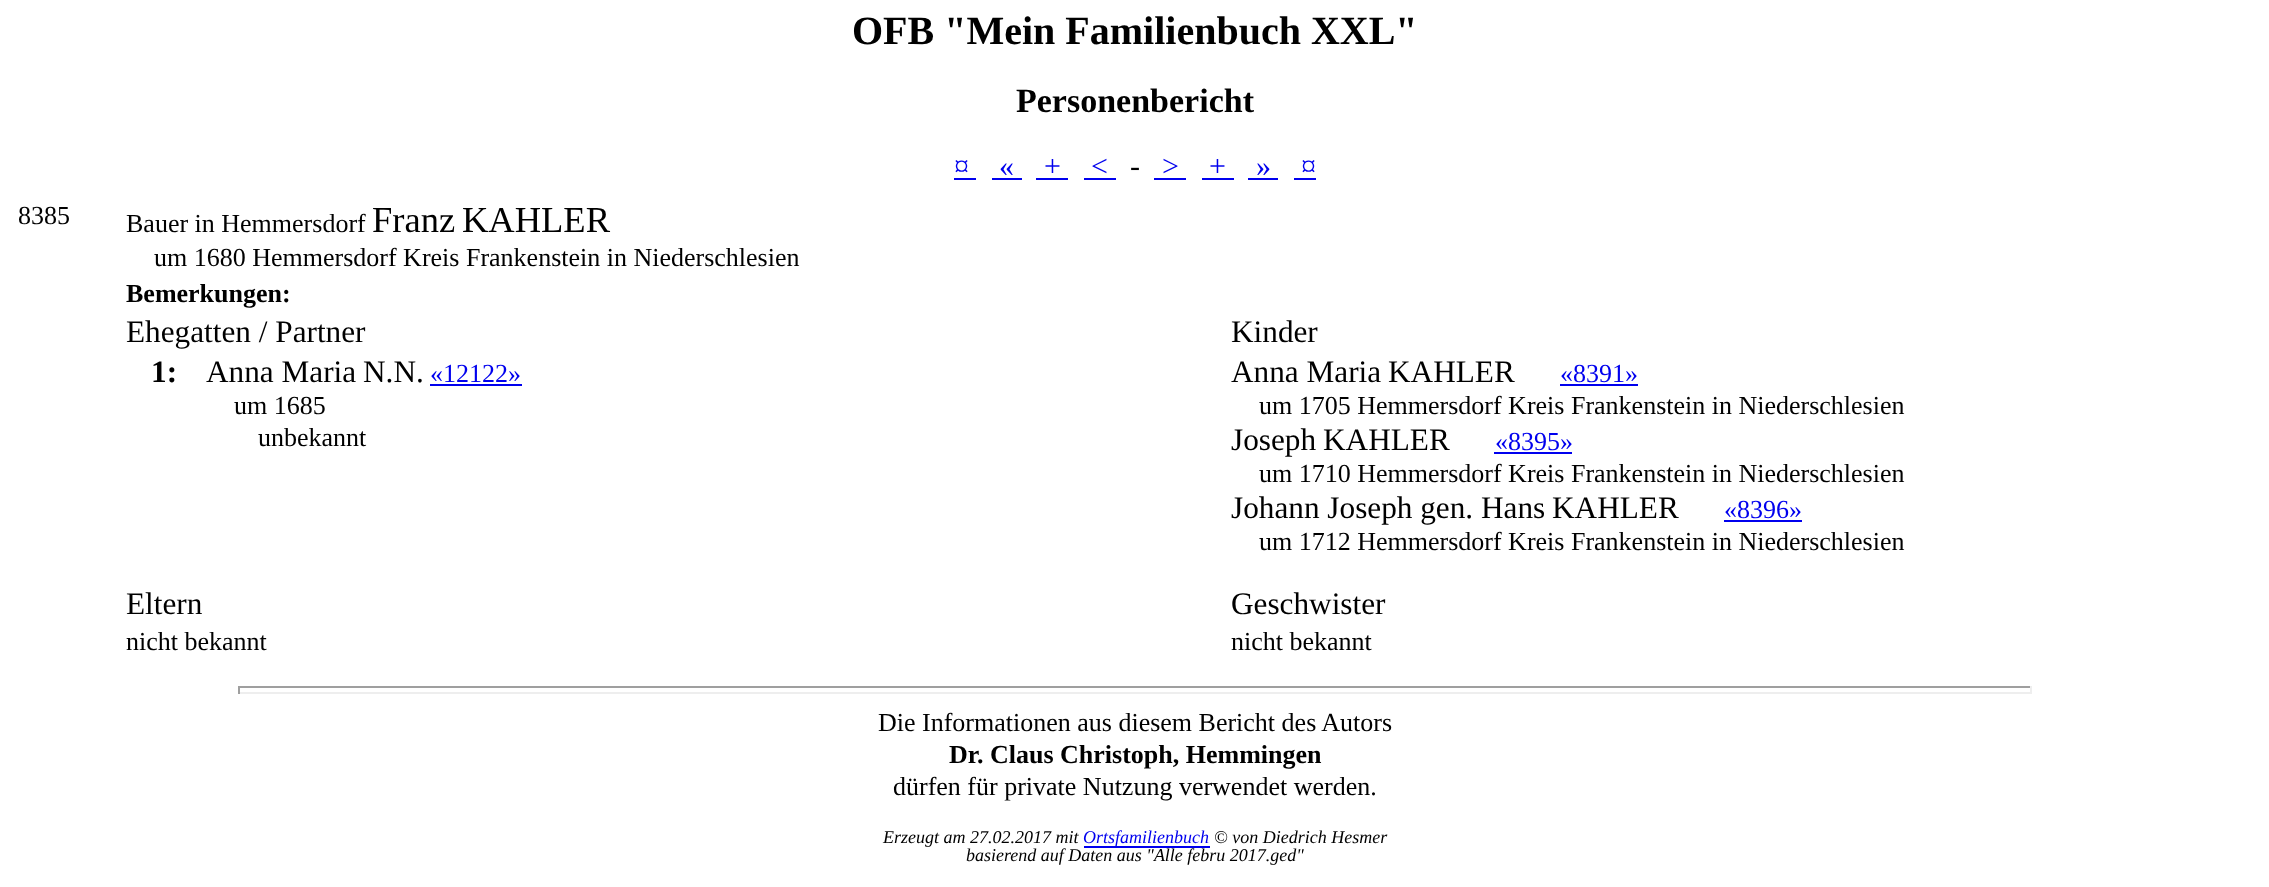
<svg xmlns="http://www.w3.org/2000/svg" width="2269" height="887">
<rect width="100%" height="100%" fill="#fff"/>
<text x="852" y="44" style="font-family:Liberation Serif;font-size:40px;font-weight:bold;fill:#000">OFB "Mein Familienbuch XXL"</text>
<text x="1016" y="112" style="font-family:Liberation Serif;font-size:34px;font-weight:bold;fill:#000">Personenbericht</text>
<text x="954" y="176" style="font-family:Liberation Serif;font-size:30px;fill:#00e">¤</text>
<rect x="954" y="178" width="22" height="2" fill="#00e"/>
<text x="999" y="176" style="font-family:Liberation Serif;font-size:30px;fill:#00e">«</text>
<rect x="992" y="178" width="30" height="2" fill="#00e"/>
<text x="1044" y="176" style="font-family:Liberation Serif;font-size:30px;fill:#00e">+</text>
<rect x="1036" y="178" width="32" height="2" fill="#00e"/>
<text x="1091" y="176" style="font-family:Liberation Serif;font-size:30px;fill:#00e">&lt;</text>
<rect x="1084" y="178" width="32" height="2" fill="#00e"/>
<text x="1130" y="176" style="font-family:Liberation Serif;font-size:30px;fill:#000">-</text>
<text x="1162" y="176" style="font-family:Liberation Serif;font-size:30px;fill:#00e">&gt;</text>
<rect x="1154" y="178" width="32" height="2" fill="#00e"/>
<text x="1209" y="176" style="font-family:Liberation Serif;font-size:30px;fill:#00e">+</text>
<rect x="1202" y="178" width="32" height="2" fill="#00e"/>
<text x="1256" y="176" style="font-family:Liberation Serif;font-size:30px;fill:#00e">»</text>
<rect x="1248" y="178" width="30" height="2" fill="#00e"/>
<text x="1301" y="176" style="font-family:Liberation Serif;font-size:30px;fill:#00e">¤</text>
<rect x="1294" y="178" width="22" height="2" fill="#00e"/>
<text x="18" y="224" style="font-family:Liberation Serif;font-size:26px;fill:#000">8385</text>
<text x="126" y="232" style="font-family:Liberation Serif;font-size:26px;fill:#000">Bauer in Hemmersdorf</text>
<text x="372" y="232" style="font-family:Liberation Serif;font-size:36.5px;fill:#000">Franz</text>
<text x="462" y="232" style="font-family:Liberation Serif;font-size:36.5px;fill:#000">KAHLER</text>
<text x="154" y="266" style="font-family:Liberation Serif;font-size:26px;fill:#000">um 1680 Hemmersdorf Kreis Frankenstein in Niederschlesien</text>
<text x="126" y="302" style="font-family:Liberation Serif;font-size:26px;font-weight:bold;fill:#000">Bemerkungen:</text>
<text x="126" y="342" style="font-family:Liberation Serif;font-size:31.25px;fill:#000">Ehegatten / Partner</text>
<text x="1231" y="342" style="font-family:Liberation Serif;font-size:31.25px;fill:#000">Kinder</text>
<text x="151" y="382" style="font-family:Liberation Serif;font-size:31.25px;font-weight:bold;fill:#000">1:</text>
<text x="206" y="382" style="font-family:Liberation Serif;font-size:31.25px;fill:#000">Anna Maria</text>
<text x="363" y="382" style="font-family:Liberation Serif;font-size:31.25px;fill:#000">N.N.</text>
<text x="430" y="382" style="font-family:Liberation Serif;font-size:26px;fill:#00e">«12122»</text>
<rect x="430" y="384" width="92" height="2" fill="#00e"/>
<text x="234" y="414" style="font-family:Liberation Serif;font-size:26px;fill:#000">um 1685</text>
<text x="258" y="446" style="font-family:Liberation Serif;font-size:26px;fill:#000">unbekannt</text>
<text x="1231" y="382" style="font-family:Liberation Serif;font-size:31.25px;fill:#000">Anna Maria</text>
<text x="1388" y="382" style="font-family:Liberation Serif;font-size:31.25px;fill:#000">KAHLER</text>
<text x="1560" y="382" style="font-family:Liberation Serif;font-size:26px;fill:#00e">«8391»</text>
<rect x="1560" y="384" width="78" height="2" fill="#00e"/>
<text x="1259" y="414" style="font-family:Liberation Serif;font-size:26px;fill:#000">um 1705 Hemmersdorf Kreis Frankenstein in Niederschlesien</text>
<text x="1231" y="450" style="font-family:Liberation Serif;font-size:31.25px;fill:#000">Joseph</text>
<text x="1323" y="450" style="font-family:Liberation Serif;font-size:31.25px;fill:#000">KAHLER</text>
<text x="1495" y="450" style="font-family:Liberation Serif;font-size:26px;fill:#00e">«8395»</text>
<rect x="1494" y="452" width="78" height="2" fill="#00e"/>
<text x="1259" y="482" style="font-family:Liberation Serif;font-size:26px;fill:#000">um 1710 Hemmersdorf Kreis Frankenstein in Niederschlesien</text>
<text x="1231" y="518" style="font-family:Liberation Serif;font-size:31.25px;fill:#000">Johann Joseph gen. Hans</text>
<text x="1552" y="518" style="font-family:Liberation Serif;font-size:31.25px;fill:#000">KAHLER</text>
<text x="1724" y="518" style="font-family:Liberation Serif;font-size:26px;fill:#00e">«8396»</text>
<rect x="1724" y="520" width="78" height="2" fill="#00e"/>
<text x="1259" y="550" style="font-family:Liberation Serif;font-size:26px;fill:#000">um 1712 Hemmersdorf Kreis Frankenstein in Niederschlesien</text>
<text x="126" y="614" style="font-family:Liberation Serif;font-size:31.25px;fill:#000">Eltern</text>
<text x="1231" y="614" style="font-family:Liberation Serif;font-size:31.25px;fill:#000">Geschwister</text>
<text x="126" y="650" style="font-family:Liberation Serif;font-size:26px;fill:#000">nicht bekannt</text>
<text x="1231" y="650" style="font-family:Liberation Serif;font-size:26px;fill:#000">nicht bekannt</text>
<rect x="238" y="686" width="1794" height="2" fill="#9f9f9f"/>
<rect x="2030" y="686" width="2" height="8" fill="#eee"/>
<rect x="238" y="692" width="1794" height="2" fill="#eee"/>
<rect x="238" y="686" width="2" height="8" fill="#9f9f9f"/>
<text x="878" y="731" style="font-family:Liberation Serif;font-size:26px;fill:#000">Die Informationen aus diesem Bericht des Autors</text>
<text x="949" y="763" style="font-family:Liberation Serif;font-size:26px;font-weight:bold;fill:#000">Dr. Claus Christoph, Hemmingen</text>
<text x="893" y="795" style="font-family:Liberation Serif;font-size:26px;fill:#000">dürfen für private Nutzung verwendet werden.</text>
<text x="883" y="843" style="font-family:Liberation Serif;font-size:18px;font-style:italic;fill:#000">Erzeugt am 27.02.2017 mit</text>
<rect x="1084" y="846" width="126" height="2" fill="#00e"/>
<text x="1083" y="843" style="font-family:Liberation Serif;font-size:18px;font-style:italic;fill:#00e">Ortsfamilienbuch</text>
<text x="1214" y="843" style="font-family:Liberation Serif;font-size:18px;font-style:italic;fill:#000">© von Diedrich Hesmer</text>
<text x="966" y="861" style="font-family:Liberation Serif;font-size:18px;font-style:italic;fill:#000">basierend auf Daten aus "Alle febru 2017.ged"</text>
</svg>
